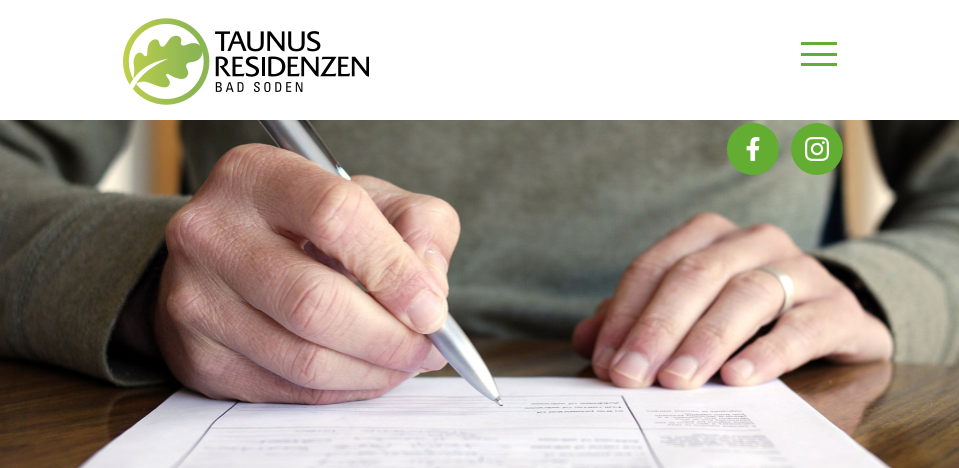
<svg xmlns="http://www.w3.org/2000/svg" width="959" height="468">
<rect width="100%" height="100%" fill="#fff"/>
<image x="123" y="18" width="246" height="87" href="media/1.png"/>
<rect x="801" y="42" width="36" height="3" fill="#64ad33"/>
<rect x="801" y="53" width="36" height="3" fill="#64ad33"/>
<rect x="801" y="63" width="36" height="3" fill="#64ad33"/>
<image x="0" y="120" width="959" height="348" href="media/4.png"/>
<circle cx="753" cy="149" r="26" fill="#64ad33"/>
<image x="746" y="137" width="14" height="24" href="media/2.png"/>
<circle cx="817" cy="149" r="26" fill="#64ad33"/>
<image x="805" y="137" width="24" height="24" href="media/3.png"/>
</svg>
